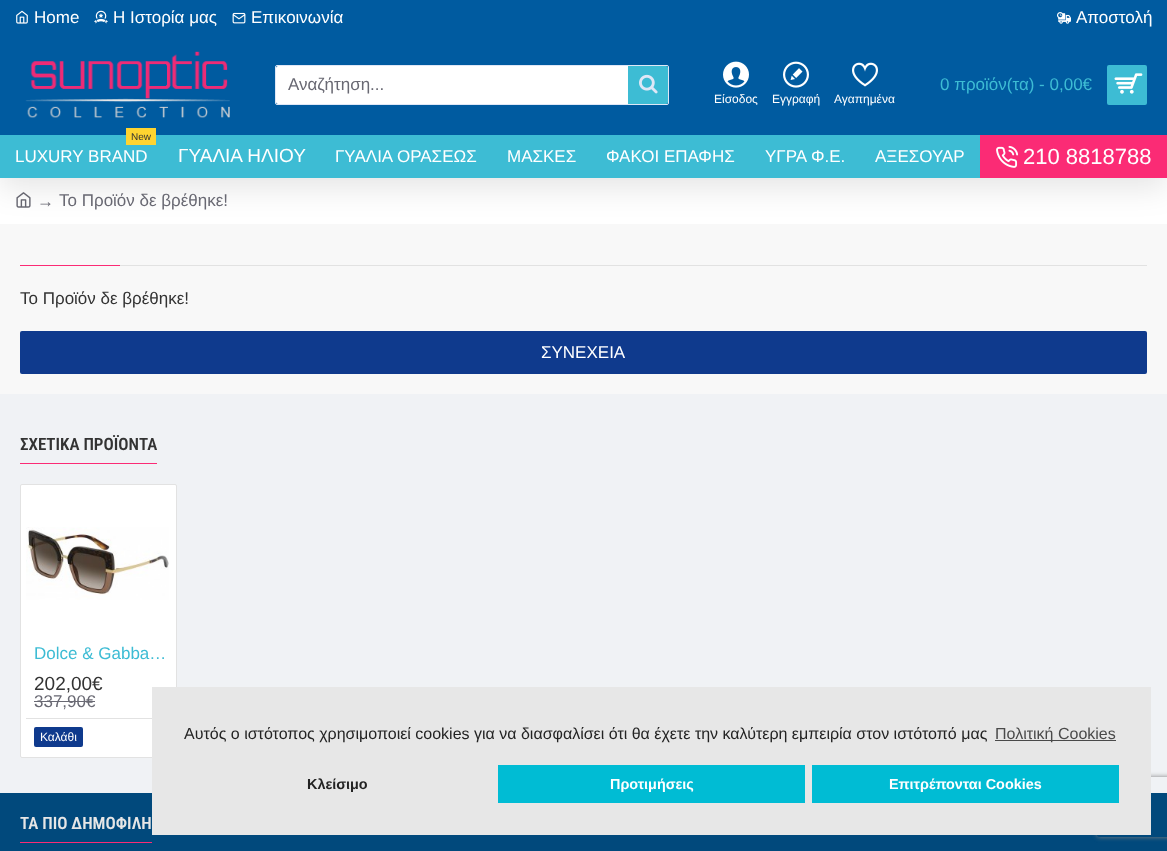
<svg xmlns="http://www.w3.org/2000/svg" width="1167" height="851">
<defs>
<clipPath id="clip1"><path d="M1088 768h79v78h-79zm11 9h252c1 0 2 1 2 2v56c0 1-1 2-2 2h-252c-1 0-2-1-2-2v-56c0-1 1-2 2-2z" clip-rule="evenodd"/></clipPath>
</defs>
<rect width="100%" height="100%" fill="#f8f8f8"/>
<rect y="178" width="1167" height="46" fill="#fff"/>
<image x="16" y="192" width="15" height="16" href="media/12.png"/>
<rect y="10" width="1167" height="178" fill="#0000001a" filter="blur(15px)"/>
<rect width="1167" height="135" fill="#005ba0"/>
<image x="16" y="10" width="12" height="14" href="media/1.png"/>
<text x="34" y="23" style="font-family:Liberation Sans;font-size:17px;fill:#fff">Home</text>
<image x="94" y="10" width="14" height="14" href="media/2.png"/>
<text x="113" y="23" style="font-family:Liberation Sans;font-size:17px;fill:#fff">Η Ιστορία μας</text>
<image x="232" y="12" width="14" height="12" href="media/3.png"/>
<text x="251" y="23" style="font-family:Liberation Sans;font-size:17px;fill:#fff">Επικοινωνία</text>
<image x="1057" y="12" width="14" height="12" href="media/4.png"/>
<text x="1076" y="23" style="font-family:Liberation Sans;font-size:17px;fill:#fff">Αποστολή</text>
<image x="25" y="51" width="205" height="67" href="media/5.png"/>
<rect x="275.5" y="65.5" width="393" height="39" rx="1.5" fill="none" stroke="#dfe7f6"/>
<path d="M278 66h350v38h-350c-1 0-2-1-2-2v-34c0-1 1-2 2-2z" fill="#fff"/>
<text x="288" y="90" style="font-family:Liberation Sans;font-size:17px;fill:#696973">Αναζήτηση...</text>
<path d="M628 66h38c1 0 2 1 2 2v34c0 1-1 2-2 2h-38z" fill="#3dbcd4"/>
<image x="639" y="74" width="19" height="20" href="media/6.png"/>
<text x="940" y="90" style="font-family:Liberation Sans;font-size:17px;fill:#3dbcd4">0 προϊόν(τα) - 0,00€</text>
<rect x="1107" y="65" width="40" height="40" rx="2" fill="#3dbcd4"/>
<image x="1114" y="73" width="29" height="21" href="media/7.png"/>
<image x="723" y="61" width="26" height="27" href="media/8.png"/>
<text x="714" y="103" style="font-family:Liberation Sans;font-size:12px;fill:#fff">Είσοδος</text>
<image x="783" y="61" width="26" height="27" href="media/9.png"/>
<text x="772" y="103" style="font-family:Liberation Sans;font-size:12px;fill:#fff">Εγγραφή</text>
<image x="852" y="62" width="26" height="25" href="media/10.png"/>
<text x="834" y="103" style="font-family:Liberation Sans;font-size:12px;fill:#fff">Αγαπημένα</text>
<rect y="135" width="980" height="43" fill="#3dbcd4"/>
<rect x="126" y="128" width="30" height="17" fill="#fed430"/>
<text x="131" y="140" style="font-family:Liberation Sans;font-size:10px;fill:#333">New</text>
<text x="15" y="162" style="font-family:Liberation Sans;font-size:17px;fill:#fff">LUXURY BRAND</text>
<text x="178" y="162" style="font-family:Liberation Sans;font-size:19px;fill:#fff">ΓΥΑΛΙΑ ΗΛΙΟΥ</text>
<text x="335" y="162" style="font-family:Liberation Sans;font-size:17px;fill:#fff">ΓΥΑΛΙΑ ΟΡΑΣΕΩΣ</text>
<text x="507" y="162" style="font-family:Liberation Sans;font-size:17px;fill:#fff">ΜΑΣΚΕΣ</text>
<text x="606" y="162" style="font-family:Liberation Sans;font-size:17px;fill:#fff">ΦΑΚΟΙ ΕΠΑΦΗΣ</text>
<text x="765" y="162" style="font-family:Liberation Sans;font-size:17px;fill:#fff">ΥΓΡΑ Φ.Ε.</text>
<text x="875" y="162" style="font-family:Liberation Sans;font-size:17px;fill:#fff">ΑΞΕΣΟΥΑΡ</text>
<rect x="980" y="135" width="187" height="43" fill="#fb2b75"/>
<image x="996" y="145" width="23" height="23" href="media/11.png"/>
<text x="1023" y="164" style="font-family:Liberation Sans;font-size:22px;fill:#fff">210 8818788</text>
<text x="37" y="207" style="font-family:Liberation Sans;font-size:17px;fill:#696973">→</text>
<text x="59" y="206" style="font-family:Liberation Sans;font-size:17px;fill:#696973">Το Προϊόν δε βρέθηκε!</text>
<rect x="120" y="265" width="1027" height="1" fill="#e2e2e2"/>
<rect x="20" y="265" width="100" height="1" fill="#fb2b75"/>
<text x="20" y="304" style="font-family:Liberation Sans;font-size:17px;fill:#333">Το Προϊόν δε βρέθηκε!</text>
<rect x="20" y="331" width="1127" height="43" rx="2" fill="#0f3a8d"/>
<text x="541" y="358" style="font-family:Liberation Sans;font-size:17px;fill:#fff">ΣΥΝΕΧΕΙΑ</text>
<rect y="394" width="1167" height="399" fill="#f0f2f5"/>
<rect x="20" y="463" width="137" height="1" fill="#fb2b75"/>
<text x="20" y="450" style="font-family:Roboto Condensed;font-size:17px;font-weight:600;fill:#333">ΣΧΕΤΙΚΑ ΠΡΟΪΟΝΤΑ</text>
<rect x="20.5" y="484.5" width="156" height="273" rx="1.5" fill="#fff" stroke="#e2e2e2"/>
<image x="26" y="527" width="143" height="73" href="media/13.png"/>
<text x="34" y="659" style="font-family:Liberation Sans;font-size:17px;fill:#3dbcd4">Dolce &amp; Gabba…</text>
<text x="34" y="690" style="font-family:Liberation Sans;font-size:19px;fill:#333">202,00€</text>
<text x="34" y="707" style="font-family:Liberation Sans;font-size:17px;fill:#696973">337,90€</text>
<rect x="34" y="701" width="61" height="1" fill="#696973"/>
<rect x="26" y="718" width="126" height="1" fill="#e2e2e2"/>
<rect x="34" y="727" width="49" height="20" rx="2" fill="#0f3a8d"/>
<text x="40" y="741" style="font-family:Liberation Sans;font-size:12px;fill:#fff">Καλάθι</text>
<rect y="793" width="1167" height="58" fill="#01497c"/>
<rect x="20" y="842" width="132" height="1" fill="#fb2b75"/>
<text x="20" y="829" style="font-family:Roboto Condensed;font-size:17px;font-weight:600;fill:#e6e6e6">ΤΑ ΠΙΟ ΔΗΜΟΦΙΛΗ</text>
<g clip-path="url(#clip1)">
<rect x="1097" y="777" width="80" height="60" rx="2" fill="#808080" filter="blur(2.5px)"/>
</g>
<rect x="152" y="687" width="999" height="148" fill="#e7e7e7"/>
<text x="184" y="739" style="font-family:Liberation Sans;font-size:16px;fill:#232323">Αυτός ο ιστότοπος χρησιμοποιεί cookies για να διασφαλίσει ότι θα έχετε την καλύτερη εμπειρία στον ιστότοπό μας</text>
<rect x="995" y="740" width="121" height="1" fill="#4a4a4a"/>
<text x="995" y="739" style="font-family:Liberation Sans;font-size:16px;fill:#4a4a4a">Πολιτική Cookies</text>
<text x="307" y="789" style="font-family:Liberation Sans;font-size:14.4px;font-weight:bold;fill:#232323">Κλείσιμο</text>
<rect x="498" y="765" width="307" height="38" fill="#00bcd4"/>
<text x="610" y="789" style="font-family:Liberation Sans;font-size:14.4px;font-weight:bold;fill:#fff">Προτιμήσεις</text>
<rect x="812" y="765" width="307" height="38" fill="#00bcd4"/>
<text x="889" y="789" style="font-family:Liberation Sans;font-size:14.4px;font-weight:bold;fill:#fff">Επιτρέπονται Cookies</text>
</svg>
